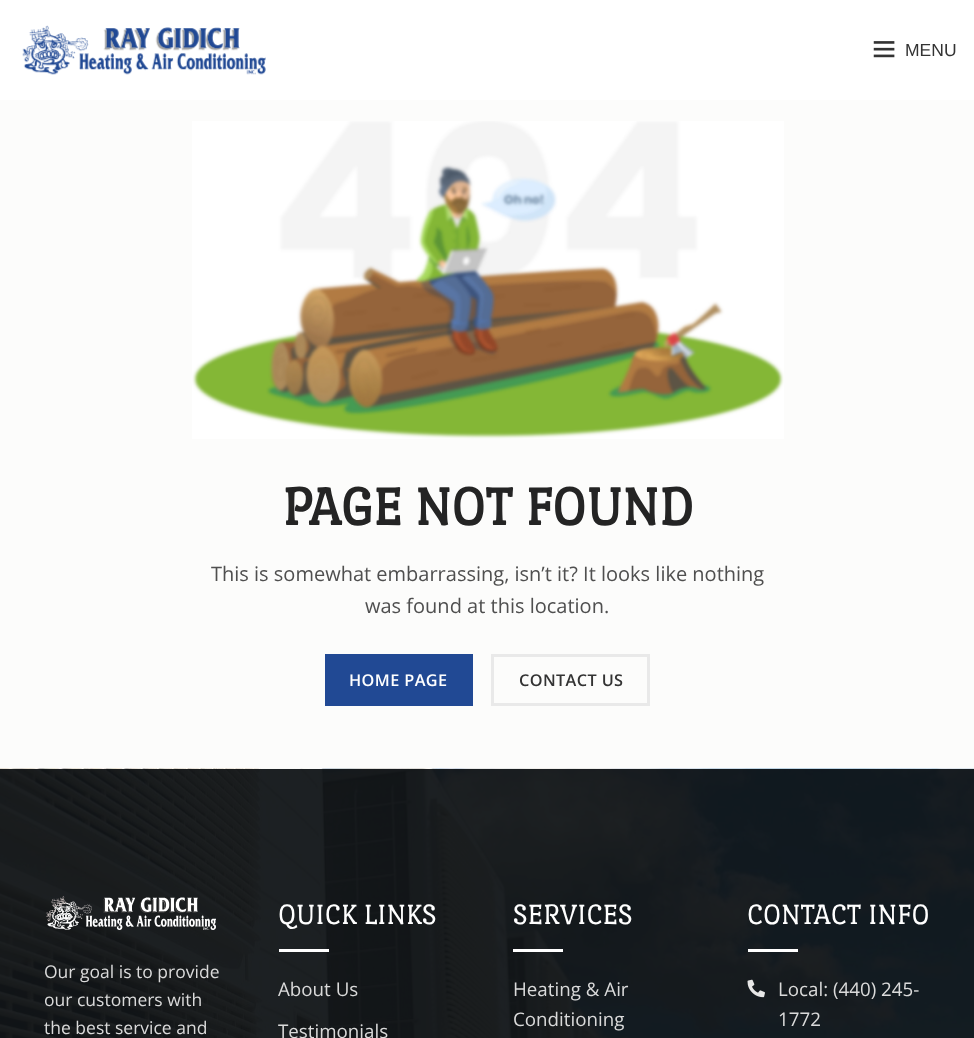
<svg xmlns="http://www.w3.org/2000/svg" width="974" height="1038">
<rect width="100%" height="100%" fill="#fff"/>
<image x="22" y="25" width="244" height="50" href="media/1.png"/>
<image x="873" y="41" width="22" height="17" href="media/2.png"/>
<text x="905" y="56" style="font-family:Liberation Sans;font-size:17.5px;fill:#333">MENU</text>
<rect y="100" width="974" height="669" fill="#fcfcfb"/>
<image x="192" y="121" width="592" height="318" href="media/3.png"/>
<text x="282" y="525" style="font-family:Port Lligat Slab;font-size:56.25px;font-weight:bold;fill:#242424">PAGE NOT FOUND</text>
<text x="211" y="581" style="font-family:Open Sans;font-size:20px;fill:#4f4f4f">This is somewhat embarrassing, isn’t it? It looks like nothing</text>
<text x="365" y="613" style="font-family:Open Sans;font-size:20px;fill:#4f4f4f">was found at this location.</text>
<rect x="325" y="654" width="148" height="52" fill="#214994"/>
<text x="349" y="686" style="font-family:Open Sans;font-size:16.25px;font-weight:600;letter-spacing:0.4px;fill:#fff">HOME PAGE</text>
<rect x="492.5" y="655.5" width="156" height="49" fill="none" stroke="#e9e9e9" stroke-width="3"/>
<text x="519" y="686" style="font-family:Open Sans;font-size:16.25px;font-weight:600;letter-spacing:0.4px;fill:#333">CONTACT US</text>
<image x="0" y="768" width="974" height="270" href="media/4.png"/>
<image x="46" y="896" width="170" height="34" href="media/5.png"/>
<text x="44" y="978" style="font-family:Open Sans;font-size:17.5px;fill:#dadada">Our goal is to provide</text>
<text x="44" y="1006" style="font-family:Open Sans;font-size:17.5px;fill:#dadada">our customers with</text>
<text x="44" y="1034" style="font-family:Open Sans;font-size:17.5px;fill:#dadada">the best service and</text>
<text x="278" y="924" style="font-family:Port Lligat Slab;font-size:30px;fill:#fff">QUICK LINKS</text>
<rect x="279" y="949" width="50" height="3" fill="#fff"/>
<text x="278" y="996" style="font-family:Open Sans;font-size:18.75px;fill:#dadada">About Us</text>
<text x="278" y="1038" style="font-family:Open Sans;font-size:18.75px;fill:#dadada">Testimonials</text>
<text x="513" y="924" style="font-family:Port Lligat Slab;font-size:30px;fill:#fff">SERVICES</text>
<rect x="513" y="949" width="50" height="3" fill="#fff"/>
<text x="513" y="996" style="font-family:Open Sans;font-size:18.75px;fill:#dadada">Heating &amp; Air</text>
<text x="513" y="1026" style="font-family:Open Sans;font-size:18.75px;fill:#dadada">Conditioning</text>
<text x="747" y="924" style="font-family:Port Lligat Slab;font-size:30px;fill:#fff">CONTACT INFO</text>
<rect x="748" y="949" width="50" height="3" fill="#fff"/>
<image x="747" y="979" width="18" height="19" href="media/6.png"/>
<text x="778" y="996" style="font-family:Open Sans;font-size:18.75px;fill:#dadada">Local: (440) 245-</text>
<text x="778" y="1026" style="font-family:Open Sans;font-size:18.75px;fill:#dadada">1772</text>
</svg>
